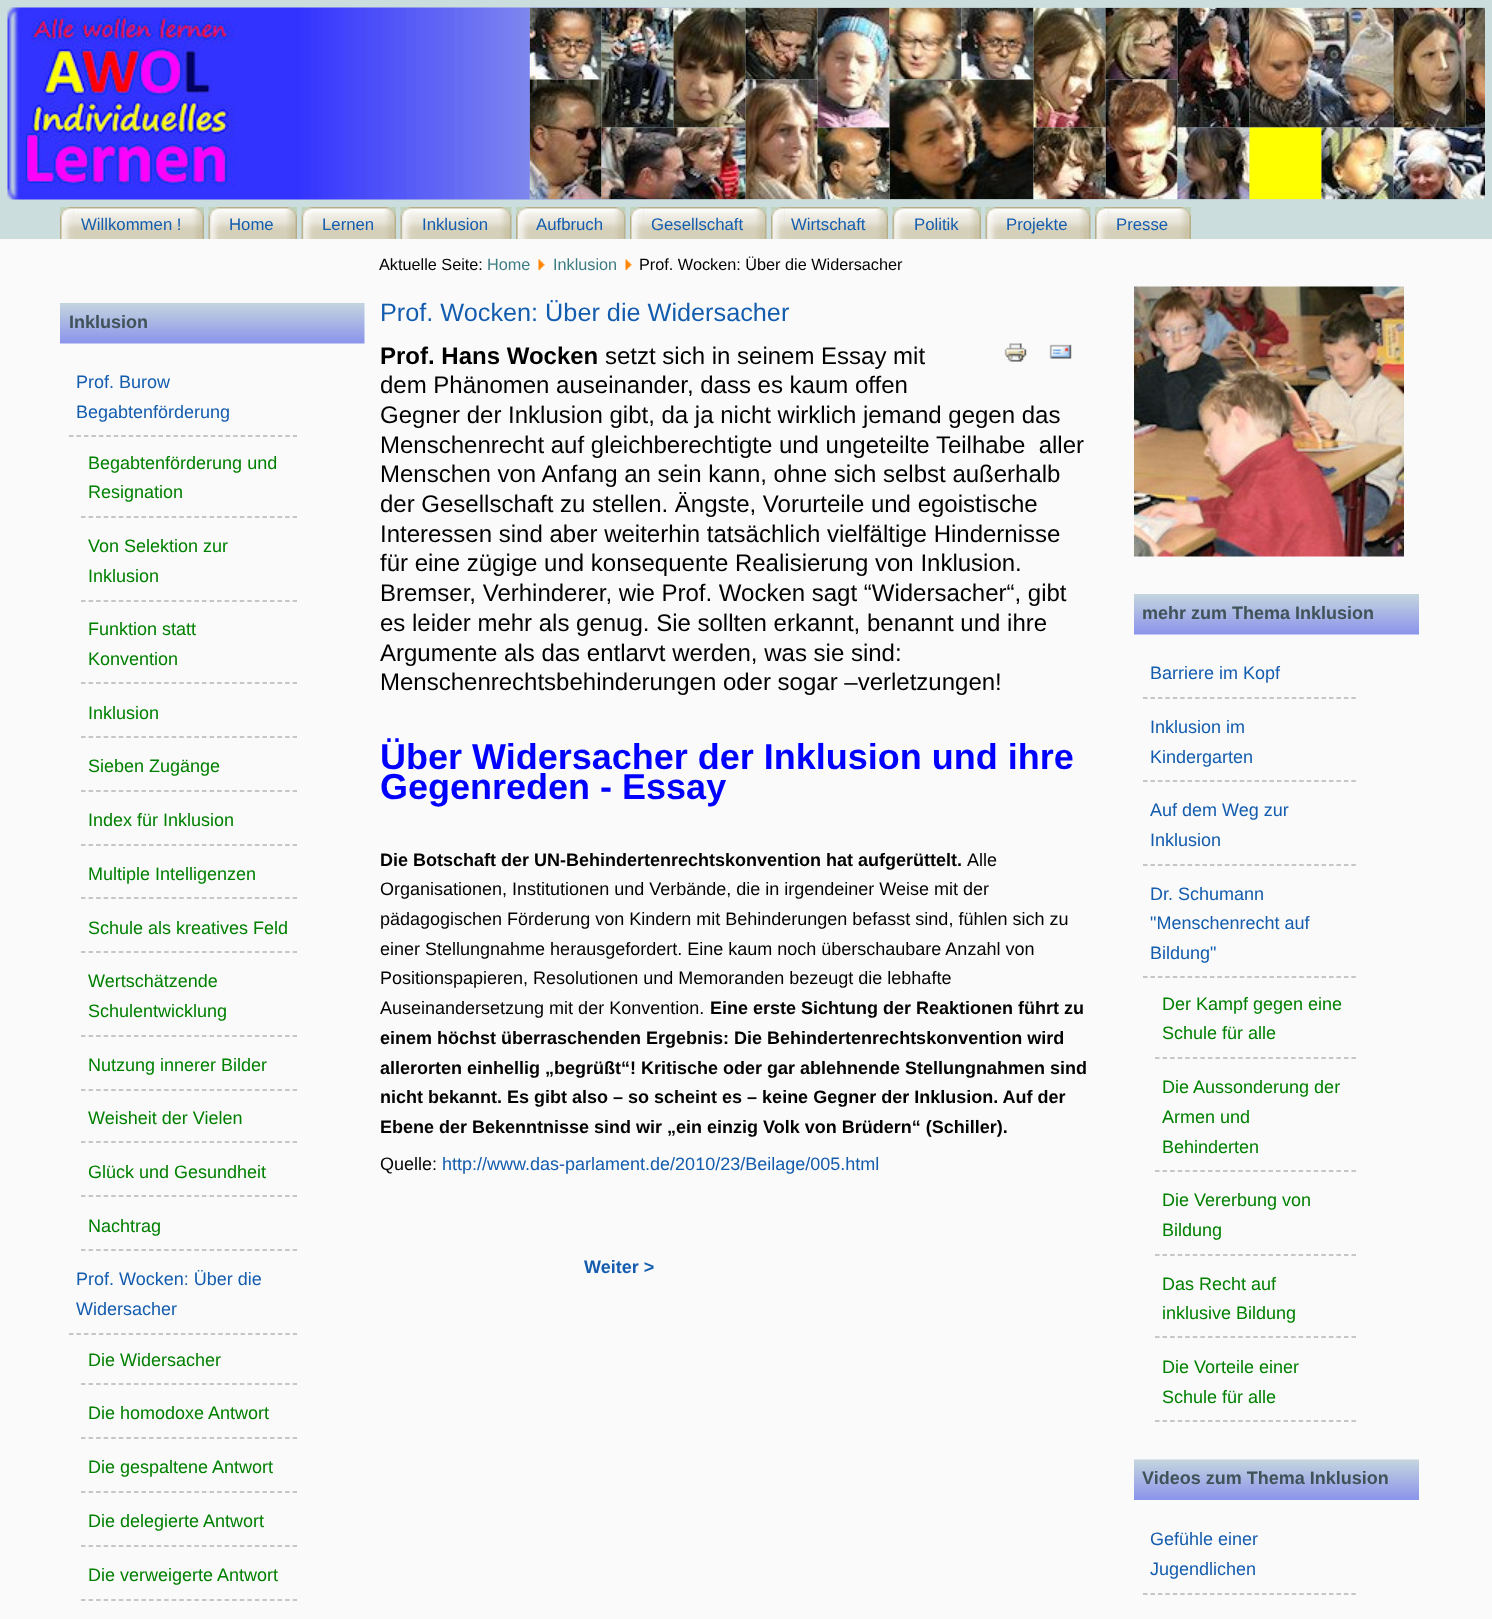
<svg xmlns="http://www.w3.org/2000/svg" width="1492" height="1619">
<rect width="100%" height="100%" fill="#cdd"/>
<image x="7" y="7" width="757" height="193" href="media/1.png"/>
<image x="529" y="7" width="956" height="193" href="media/2.png"/>
<image x="60" y="207" width="14" height="32" href="media/3.png"/>
<image x="73" y="207" width="131" height="32" href="media/4.png"/>
<text x="81" y="230" style="font-family:Liberation Sans;font-size:16.75px;fill:#135cae">Willkommen !</text>
<image x="208" y="207" width="14" height="32" href="media/5.png"/>
<image x="222" y="207" width="75" height="32" href="media/6.png"/>
<text x="229" y="230" style="font-family:Liberation Sans;font-size:16.75px;fill:#135cae">Home</text>
<image x="301" y="207" width="14" height="32" href="media/5.png"/>
<image x="315" y="207" width="81" height="32" href="media/7.png"/>
<text x="322" y="230" style="font-family:Liberation Sans;font-size:16.75px;fill:#135cae">Lernen</text>
<image x="400" y="207" width="14" height="32" href="media/8.png"/>
<image x="414" y="207" width="98" height="32" href="media/9.png"/>
<text x="422" y="230" style="font-family:Liberation Sans;font-size:16.75px;fill:#135cae">Inklusion</text>
<image x="516" y="207" width="14" height="32" href="media/10.png"/>
<image x="530" y="207" width="96" height="32" href="media/11.png"/>
<text x="536" y="230" style="font-family:Liberation Sans;font-size:16.75px;fill:#135cae">Aufbruch</text>
<image x="630" y="207" width="14" height="32" href="media/3.png"/>
<image x="643" y="207" width="124" height="32" href="media/12.png"/>
<text x="651" y="230" style="font-family:Liberation Sans;font-size:16.75px;fill:#135cae">Gesellschaft</text>
<image x="771" y="207" width="14" height="32" href="media/3.png"/>
<image x="784" y="207" width="104" height="32" href="media/13.png"/>
<text x="791" y="230" style="font-family:Liberation Sans;font-size:16.75px;fill:#135cae">Wirtschaft</text>
<image x="892" y="207" width="14" height="32" href="media/5.png"/>
<image x="906" y="207" width="75" height="32" href="media/6.png"/>
<text x="914" y="230" style="font-family:Liberation Sans;font-size:16.75px;fill:#135cae">Politik</text>
<image x="985" y="207" width="14" height="32" href="media/5.png"/>
<image x="999" y="207" width="92" height="32" href="media/14.png"/>
<text x="1006" y="230" style="font-family:Liberation Sans;font-size:16.75px;fill:#135cae">Projekte</text>
<image x="1095" y="207" width="14" height="32" href="media/15.png"/>
<image x="1108" y="207" width="83" height="32" href="media/16.png"/>
<text x="1116" y="230" style="font-family:Liberation Sans;font-size:16.75px;fill:#135cae">Presse</text>
<rect y="239" width="1492" height="1380" fill="#fafafa"/>
<text x="379" y="270" style="font-family:Liberation Sans;font-size:16.25px;fill:#000">Aktuelle Seite:</text>
<text x="487" y="270" style="font-family:Liberation Sans;font-size:16.25px;fill:#3d7c82">Home</text>
<image x="538" y="259" width="7" height="11" href="media/17.png"/>
<text x="553" y="270" style="font-family:Liberation Sans;font-size:16.25px;fill:#3d7c82">Inklusion</text>
<image x="625" y="259" width="7" height="11" href="media/17.png"/>
<text x="639" y="270" style="font-family:Liberation Sans;font-size:16.25px;fill:#000">Prof. Wocken: Über die Widersacher</text>
<image x="60" y="303" width="305" height="41" href="media/18.png"/>
<text x="69" y="328" style="font-family:Liberation Sans;font-size:18px;font-weight:bold;fill:#3e5458">Inklusion</text>
<path d="M69 436h228" fill="none" stroke="#b5b5b5" stroke-width="1.5" stroke-dasharray="4.5 2.96"/>
<text x="76" y="388" style="font-family:Liberation Sans;font-size:18px;fill:#135cae">Prof. Burow</text>
<text x="76" y="418" style="font-family:Liberation Sans;font-size:18px;fill:#135cae">Begabtenförderung</text>
<path d="M81 517h216" fill="none" stroke="#b5b5b5" stroke-width="1.5" stroke-dasharray="4.5 3.06"/>
<text x="88" y="469" style="font-family:Liberation Sans;font-size:18px;fill:#008000">Begabtenförderung und</text>
<text x="88" y="498" style="font-family:Liberation Sans;font-size:18px;fill:#008000">Resignation</text>
<path d="M81 601h216" fill="none" stroke="#b5b5b5" stroke-width="1.5" stroke-dasharray="4.5 3.06"/>
<text x="88" y="552" style="font-family:Liberation Sans;font-size:18px;fill:#008000">Von Selektion zur</text>
<text x="88" y="582" style="font-family:Liberation Sans;font-size:18px;fill:#008000">Inklusion</text>
<path d="M81 683h216" fill="none" stroke="#b5b5b5" stroke-width="1.5" stroke-dasharray="4.5 3.06"/>
<text x="88" y="635" style="font-family:Liberation Sans;font-size:18px;fill:#008000">Funktion statt</text>
<text x="88" y="665" style="font-family:Liberation Sans;font-size:18px;fill:#008000">Konvention</text>
<path d="M81 737h216" fill="none" stroke="#b5b5b5" stroke-width="1.5" stroke-dasharray="4.5 3.06"/>
<text x="88" y="719" style="font-family:Liberation Sans;font-size:18px;fill:#008000">Inklusion</text>
<path d="M81 791h216" fill="none" stroke="#b5b5b5" stroke-width="1.5" stroke-dasharray="4.5 3.06"/>
<text x="88" y="772" style="font-family:Liberation Sans;font-size:18px;fill:#008000">Sieben Zugänge</text>
<path d="M81 845h216" fill="none" stroke="#b5b5b5" stroke-width="1.5" stroke-dasharray="4.5 3.06"/>
<text x="88" y="826" style="font-family:Liberation Sans;font-size:18px;fill:#008000">Index für Inklusion</text>
<path d="M81 898h216" fill="none" stroke="#b5b5b5" stroke-width="1.5" stroke-dasharray="4.5 3.06"/>
<text x="88" y="880" style="font-family:Liberation Sans;font-size:18px;fill:#008000">Multiple Intelligenzen</text>
<path d="M81 952h216" fill="none" stroke="#b5b5b5" stroke-width="1.5" stroke-dasharray="4.5 3.06"/>
<text x="88" y="934" style="font-family:Liberation Sans;font-size:18px;fill:#008000">Schule als kreatives Feld</text>
<path d="M81 1036h216" fill="none" stroke="#b5b5b5" stroke-width="1.5" stroke-dasharray="4.5 3.06"/>
<text x="88" y="987" style="font-family:Liberation Sans;font-size:18px;fill:#008000">Wertschätzende</text>
<text x="88" y="1017" style="font-family:Liberation Sans;font-size:18px;fill:#008000">Schulentwicklung</text>
<path d="M81 1090h216" fill="none" stroke="#b5b5b5" stroke-width="1.5" stroke-dasharray="4.5 3.06"/>
<text x="88" y="1071" style="font-family:Liberation Sans;font-size:18px;fill:#008000">Nutzung innerer Bilder</text>
<path d="M81 1142h216" fill="none" stroke="#b5b5b5" stroke-width="1.5" stroke-dasharray="4.5 3.06"/>
<text x="88" y="1124" style="font-family:Liberation Sans;font-size:18px;fill:#008000">Weisheit der Vielen</text>
<path d="M81 1196h216" fill="none" stroke="#b5b5b5" stroke-width="1.5" stroke-dasharray="4.5 3.06"/>
<text x="88" y="1178" style="font-family:Liberation Sans;font-size:18px;fill:#008000">Glück und Gesundheit</text>
<path d="M81 1250h216" fill="none" stroke="#b5b5b5" stroke-width="1.5" stroke-dasharray="4.5 3.06"/>
<text x="88" y="1232" style="font-family:Liberation Sans;font-size:18px;fill:#008000">Nachtrag</text>
<path d="M69 1334h228" fill="none" stroke="#b5b5b5" stroke-width="1.5" stroke-dasharray="4.5 2.96"/>
<text x="76" y="1285" style="font-family:Liberation Sans;font-size:18px;fill:#135cae">Prof. Wocken: Über die</text>
<text x="76" y="1315" style="font-family:Liberation Sans;font-size:18px;fill:#135cae">Widersacher</text>
<path d="M81 1384h216" fill="none" stroke="#b5b5b5" stroke-width="1.5" stroke-dasharray="4.5 3.06"/>
<text x="88" y="1366" style="font-family:Liberation Sans;font-size:18px;fill:#008000">Die Widersacher</text>
<path d="M81 1438h216" fill="none" stroke="#b5b5b5" stroke-width="1.5" stroke-dasharray="4.5 3.06"/>
<text x="88" y="1419" style="font-family:Liberation Sans;font-size:18px;fill:#008000">Die homodoxe Antwort</text>
<path d="M81 1492h216" fill="none" stroke="#b5b5b5" stroke-width="1.5" stroke-dasharray="4.5 3.06"/>
<text x="88" y="1473" style="font-family:Liberation Sans;font-size:18px;fill:#008000">Die gespaltene Antwort</text>
<path d="M81 1546h216" fill="none" stroke="#b5b5b5" stroke-width="1.5" stroke-dasharray="4.5 3.06"/>
<text x="88" y="1527" style="font-family:Liberation Sans;font-size:18px;fill:#008000">Die delegierte Antwort</text>
<path d="M81 1600h216" fill="none" stroke="#b5b5b5" stroke-width="1.5" stroke-dasharray="4.5 3.06"/>
<text x="88" y="1581" style="font-family:Liberation Sans;font-size:18px;fill:#008000">Die verweigerte Antwort</text>
<text x="380" y="321" style="font-family:Liberation Sans;font-size:25.25px;fill:#135cae">Prof. Wocken: Über die Widersacher</text>
<image x="1004" y="343" width="23" height="19" href="media/19.png"/>
<image x="1049" y="344" width="23" height="15" href="media/20.png"/>
<text x="380" y="364" style="font-family:Liberation Sans;font-size:24px;font-weight:bold;fill:#000">Prof. Hans Wocken</text>
<text x="605" y="364" style="font-family:Liberation Sans;font-size:24px;fill:#000">setzt sich in seinem Essay mit</text>
<text x="380" y="393" style="font-family:Liberation Sans;font-size:24px;fill:#000">dem Phänomen auseinander, dass es kaum offen</text>
<text x="380" y="423" style="font-family:Liberation Sans;font-size:24px;fill:#000">Gegner der Inklusion gibt, da ja nicht wirklich jemand gegen das</text>
<text x="380" y="453" style="font-family:Liberation Sans;font-size:24px;fill:#000" xml:space="preserve">Menschenrecht auf gleichberechtigte und ungeteilte Teilhabe  aller</text>
<text x="380" y="482" style="font-family:Liberation Sans;font-size:24px;fill:#000">Menschen von Anfang an sein kann, ohne sich selbst außerhalb</text>
<text x="380" y="512" style="font-family:Liberation Sans;font-size:24px;fill:#000">der Gesellschaft zu stellen. Ängste, Vorurteile und egoistische</text>
<text x="380" y="542" style="font-family:Liberation Sans;font-size:24px;fill:#000">Interessen sind aber weiterhin tatsächlich vielfältige Hindernisse</text>
<text x="380" y="571" style="font-family:Liberation Sans;font-size:24px;fill:#000">für eine zügige und konsequente Realisierung von Inklusion.</text>
<text x="380" y="601" style="font-family:Liberation Sans;font-size:24px;fill:#000">Bremser, Verhinderer, wie Prof. Wocken sagt “Widersacher“, gibt</text>
<text x="380" y="631" style="font-family:Liberation Sans;font-size:24px;fill:#000">es leider mehr als genug. Sie sollten erkannt, benannt und ihre</text>
<text x="380" y="661" style="font-family:Liberation Sans;font-size:24px;fill:#000">Argumente als das entlarvt werden, was sie sind:</text>
<text x="380" y="690" style="font-family:Liberation Sans;font-size:24px;fill:#000">Menschenrechtsbehinderungen oder sogar –verletzungen!</text>
<text x="380" y="769" style="font-family:Liberation Sans;font-size:36px;font-weight:bold;fill:#00f">Über Widersacher der Inklusion und ihre</text>
<text x="380" y="799" style="font-family:Liberation Sans;font-size:36px;font-weight:bold;fill:#00f">Gegenreden - Essay</text>
<text x="380" y="866" style="font-family:Liberation Sans;font-size:18px;font-weight:bold;fill:#000">Die Botschaft der UN-Behindertenrechtskonvention hat aufgerüttelt.</text>
<text x="967" y="866" style="font-family:Liberation Sans;font-size:18px;fill:#000">Alle</text>
<text x="380" y="895" style="font-family:Liberation Sans;font-size:18px;fill:#000">Organisationen, Institutionen und Verbände, die in irgendeiner Weise mit der</text>
<text x="380" y="925" style="font-family:Liberation Sans;font-size:18px;fill:#000">pädagogischen Förderung von Kindern mit Behinderungen befasst sind, fühlen sich zu</text>
<text x="380" y="955" style="font-family:Liberation Sans;font-size:18px;fill:#000">einer Stellungnahme herausgefordert. Eine kaum noch überschaubare Anzahl von</text>
<text x="380" y="984" style="font-family:Liberation Sans;font-size:18px;fill:#000">Positionspapieren, Resolutionen und Memoranden bezeugt die lebhafte</text>
<text x="380" y="1014" style="font-family:Liberation Sans;font-size:18px;fill:#000">Auseinandersetzung mit der Konvention.</text>
<text x="710" y="1014" style="font-family:Liberation Sans;font-size:18px;font-weight:bold;fill:#000">Eine erste Sichtung der Reaktionen führt zu</text>
<text x="380" y="1044" style="font-family:Liberation Sans;font-size:18px;font-weight:bold;fill:#000">einem höchst überraschenden Ergebnis: Die Behindertenrechtskonvention wird</text>
<text x="380" y="1074" style="font-family:Liberation Sans;font-size:18px;font-weight:bold;fill:#000">allerorten einhellig „begrüßt“! Kritische oder gar ablehnende Stellungnahmen sind</text>
<text x="380" y="1103" style="font-family:Liberation Sans;font-size:18px;font-weight:bold;fill:#000">nicht bekannt. Es gibt also – so scheint es – keine Gegner der Inklusion. Auf der</text>
<text x="380" y="1133" style="font-family:Liberation Sans;font-size:18px;font-weight:bold;fill:#000">Ebene der Bekenntnisse sind wir „ein einzig Volk von Brüdern“ (Schiller).</text>
<text x="380" y="1170" style="font-family:Liberation Sans;font-size:18px;fill:#000">Quelle:</text>
<text x="442" y="1170" style="font-family:Liberation Sans;font-size:18px;fill:#135cae">http://www.das-parlament.de/2010/23/Beilage/005.html</text>
<text x="584" y="1273" style="font-family:Liberation Sans;font-size:18px;font-weight:bold;fill:#135cae">Weiter &gt;</text>
<image x="1134" y="286" width="270" height="271" href="media/21.png"/>
<image x="1134" y="594" width="285" height="41" href="media/22.png"/>
<text x="1142" y="619" style="font-family:Liberation Sans;font-size:18px;font-weight:bold;fill:#3e5458">mehr zum Thema Inklusion</text>
<path d="M1143 698h213" fill="none" stroke="#b5b5b5" stroke-width="1.5" stroke-dasharray="4.5 2.94"/>
<text x="1150" y="679" style="font-family:Liberation Sans;font-size:18px;fill:#135cae">Barriere im Kopf</text>
<path d="M1143 781h213" fill="none" stroke="#b5b5b5" stroke-width="1.5" stroke-dasharray="4.5 2.94"/>
<text x="1150" y="733" style="font-family:Liberation Sans;font-size:18px;fill:#135cae">Inklusion im</text>
<text x="1150" y="763" style="font-family:Liberation Sans;font-size:18px;fill:#135cae">Kindergarten</text>
<path d="M1143 865h213" fill="none" stroke="#b5b5b5" stroke-width="1.5" stroke-dasharray="4.5 2.94"/>
<text x="1150" y="816" style="font-family:Liberation Sans;font-size:18px;fill:#135cae">Auf dem Weg zur</text>
<text x="1150" y="846" style="font-family:Liberation Sans;font-size:18px;fill:#135cae">Inklusion</text>
<path d="M1143 977h213" fill="none" stroke="#b5b5b5" stroke-width="1.5" stroke-dasharray="4.5 2.94"/>
<text x="1150" y="900" style="font-family:Liberation Sans;font-size:18px;fill:#135cae">Dr. Schumann</text>
<text x="1150" y="929" style="font-family:Liberation Sans;font-size:18px;fill:#135cae">"Menschenrecht auf</text>
<text x="1150" y="959" style="font-family:Liberation Sans;font-size:18px;fill:#135cae">Bildung"</text>
<path d="M1155 1058h201" fill="none" stroke="#b5b5b5" stroke-width="1.5" stroke-dasharray="4.5 3.06"/>
<text x="1162" y="1010" style="font-family:Liberation Sans;font-size:18px;fill:#008000">Der Kampf gegen eine</text>
<text x="1162" y="1039" style="font-family:Liberation Sans;font-size:18px;fill:#008000">Schule für alle</text>
<path d="M1155 1171h201" fill="none" stroke="#b5b5b5" stroke-width="1.5" stroke-dasharray="4.5 3.06"/>
<text x="1162" y="1093" style="font-family:Liberation Sans;font-size:18px;fill:#008000">Die Aussonderung der</text>
<text x="1162" y="1123" style="font-family:Liberation Sans;font-size:18px;fill:#008000">Armen und</text>
<text x="1162" y="1153" style="font-family:Liberation Sans;font-size:18px;fill:#008000">Behinderten</text>
<path d="M1155 1255h201" fill="none" stroke="#b5b5b5" stroke-width="1.5" stroke-dasharray="4.5 3.06"/>
<text x="1162" y="1206" style="font-family:Liberation Sans;font-size:18px;fill:#008000">Die Vererbung von</text>
<text x="1162" y="1236" style="font-family:Liberation Sans;font-size:18px;fill:#008000">Bildung</text>
<path d="M1155 1337h201" fill="none" stroke="#b5b5b5" stroke-width="1.5" stroke-dasharray="4.5 3.06"/>
<text x="1162" y="1290" style="font-family:Liberation Sans;font-size:18px;fill:#008000">Das Recht auf</text>
<text x="1162" y="1319" style="font-family:Liberation Sans;font-size:18px;fill:#008000">inklusive Bildung</text>
<path d="M1155 1421h201" fill="none" stroke="#b5b5b5" stroke-width="1.5" stroke-dasharray="4.5 3.06"/>
<text x="1162" y="1373" style="font-family:Liberation Sans;font-size:18px;fill:#008000">Die Vorteile einer</text>
<text x="1162" y="1403" style="font-family:Liberation Sans;font-size:18px;fill:#008000">Schule für alle</text>
<image x="1134" y="1459" width="285" height="41" href="media/23.png"/>
<text x="1142" y="1484" style="font-family:Liberation Sans;font-size:18px;font-weight:bold;fill:#3e5458">Videos zum Thema Inklusion</text>
<path d="M1143 1594h213" fill="none" stroke="#b5b5b5" stroke-width="1.5" stroke-dasharray="4.5 2.94"/>
<text x="1150" y="1545" style="font-family:Liberation Sans;font-size:18px;fill:#135cae">Gefühle einer</text>
<text x="1150" y="1575" style="font-family:Liberation Sans;font-size:18px;fill:#135cae">Jugendlichen</text>
</svg>
